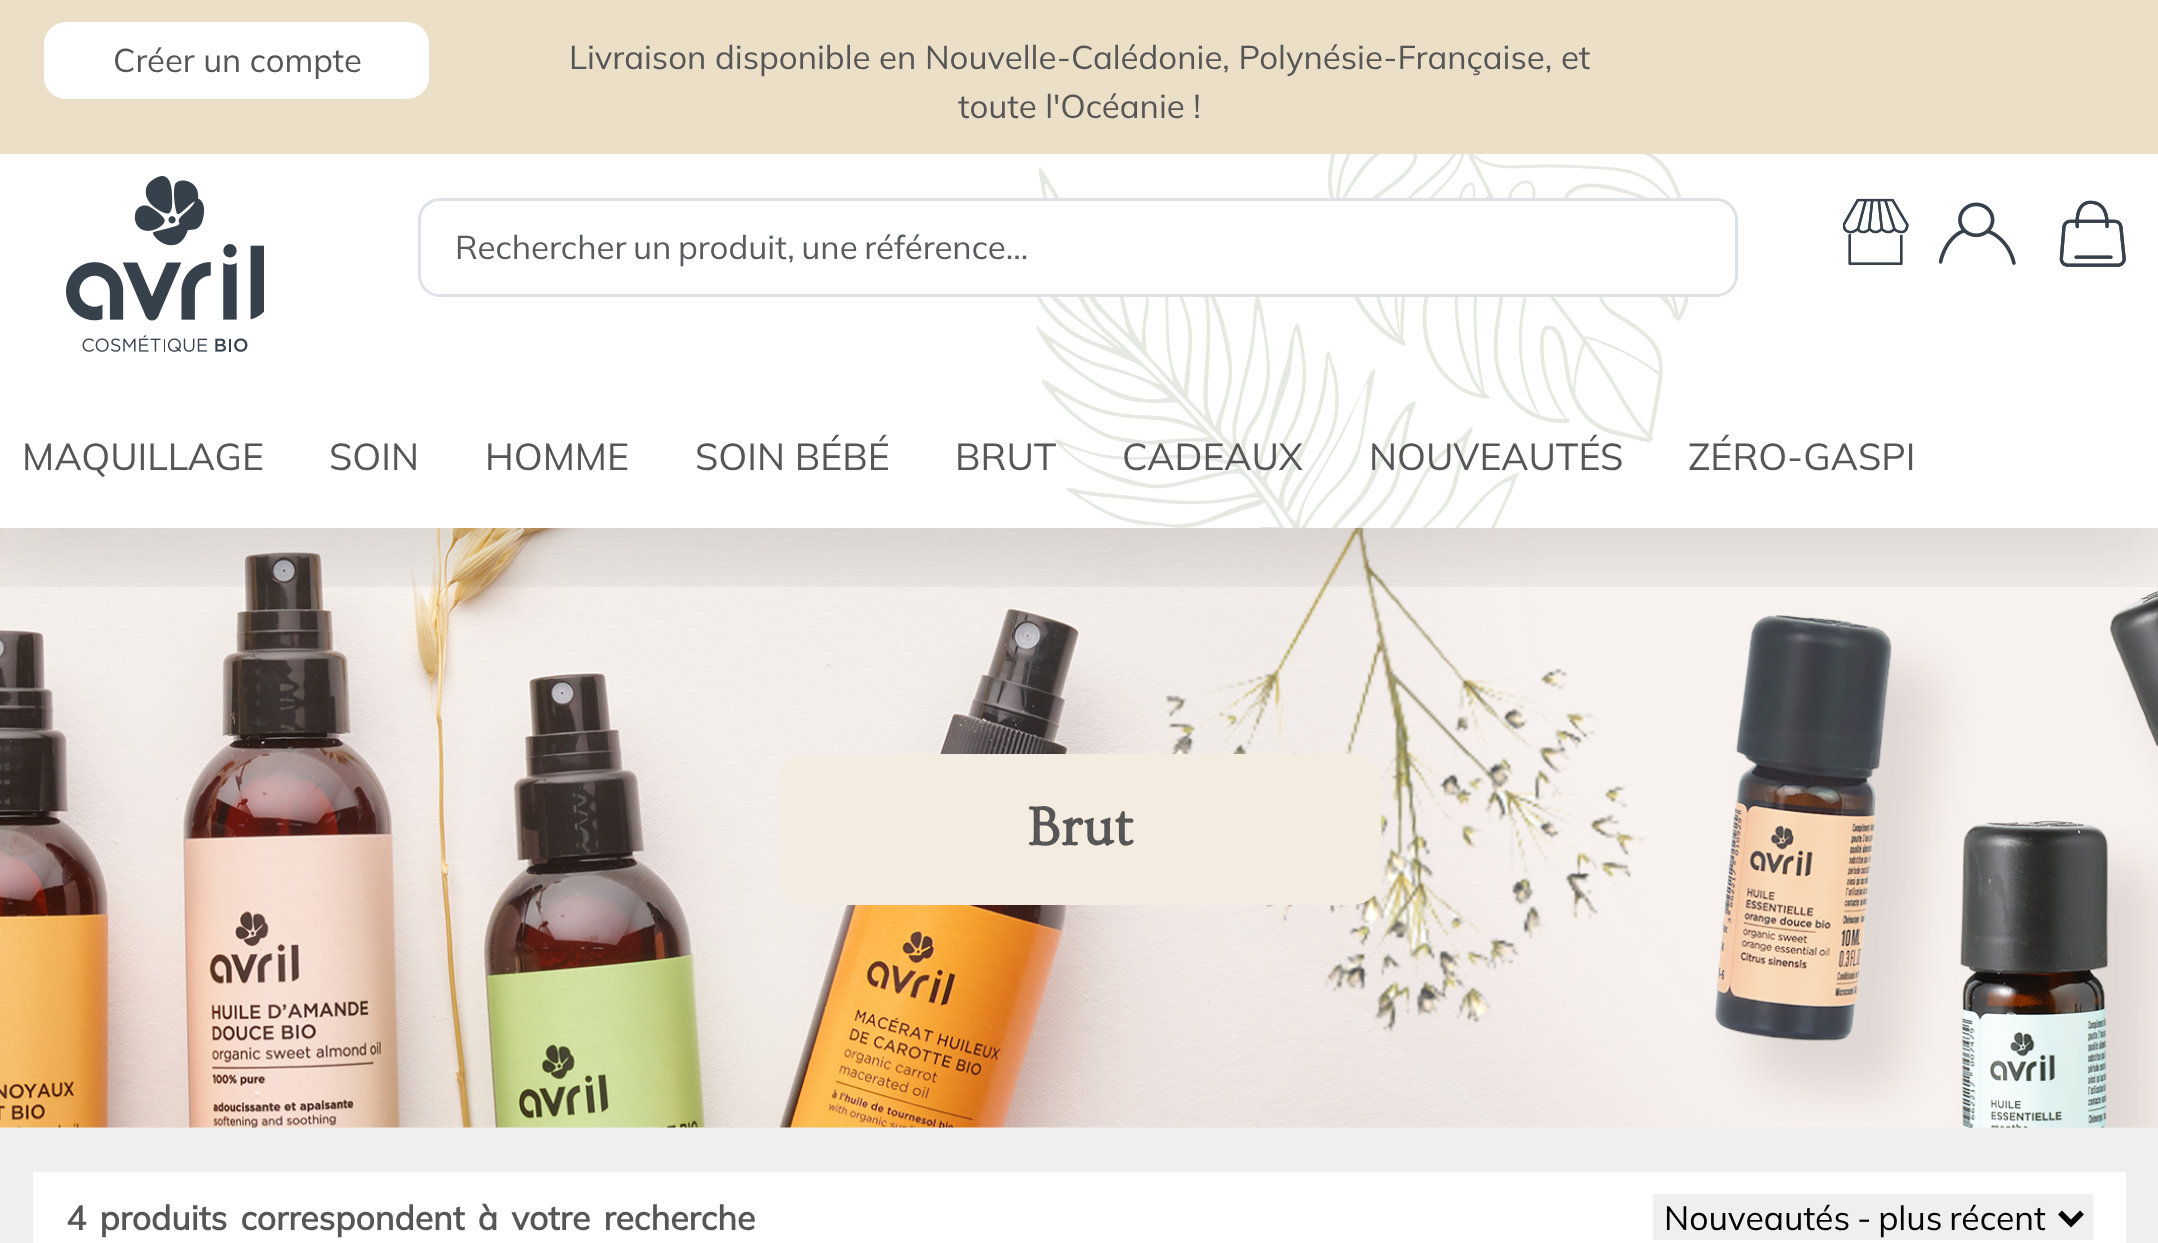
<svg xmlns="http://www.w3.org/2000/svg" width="2158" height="1243">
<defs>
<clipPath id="clip1"><rect x="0" y="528" width="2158" height="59"/></clipPath>
</defs>
<rect width="100%" height="100%" fill="#fff"/>
<rect y="1127" width="2158" height="116" fill="#efefef"/>
<image x="0" y="528" width="2158" height="600" href="media/6.png"/>
<g clip-path="url(#clip1)">
<rect x="-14" y="14" width="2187" height="555" fill="#0000000f" filter="blur(42.5px)"/>
<rect x="-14" y="168" width="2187" height="401" fill="#0000000f" filter="blur(42.5px)"/>
</g>
<rect width="2158" height="154" fill="#ecdfc8"/>
<rect x="44" y="22" width="385" height="77" rx="22" fill="#fff"/>
<text x="113" y="72" style="font-family:Mulish;font-size:32.75px;fill:#565656">Créer un compte</text>
<text x="569" y="69" style="font-family:Mulish;font-size:33px;fill:#565656">Livraison disponible en Nouvelle-Calédonie, Polynésie-Française, et</text>
<text x="958" y="118" style="font-family:Mulish;font-size:33px;fill:#565656">toute l'Océanie !</text>
<image x="66" y="176" width="198" height="176" href="media/1.png"/>
<image x="1036" y="154" width="653" height="374" href="media/2.png"/>
<rect x="419.5" y="199.5" width="1317" height="96" rx="20.5" fill="#fff" stroke="#dee2e6" stroke-width="3"/>
<text x="455" y="259" word-spacing="-2" style="font-family:Mulish;font-size:33px;fill:#595c5f">Rechercher un produit, une référence...</text>
<image x="1843" y="198" width="66" height="67" href="media/3.png"/>
<image x="1939" y="202" width="77" height="63" href="media/4.png"/>
<image x="2059" y="200" width="67" height="67" href="media/5.png"/>
<text x="22" y="470" style="font-family:Mulish;font-size:37.5px;fill:#565656">MAQUILLAGE</text>
<text x="329" y="470" style="font-family:Mulish;font-size:37.5px;fill:#565656">SOIN</text>
<text x="485" y="470" style="font-family:Mulish;font-size:37.5px;fill:#565656">HOMME</text>
<text x="695" y="470" style="font-family:Mulish;font-size:37.5px;fill:#565656">SOIN BÉBÉ</text>
<text x="955" y="470" style="font-family:Mulish;font-size:37.5px;fill:#565656">BRUT</text>
<text x="1122" y="470" style="font-family:Mulish;font-size:37.5px;fill:#565656">CADEAUX</text>
<text x="1369" y="470" style="font-family:Mulish;font-size:37.5px;fill:#565656">NOUVEAUTÉS</text>
<text x="1688" y="470" style="font-family:Mulish;font-size:37.5px;fill:#565656">ZÉRO-GASPI</text>
<rect x="778" y="754" width="603" height="151" rx="28" fill="#f5ece1"/>
<text x="1027" y="845" style="font-family:Ovo;font-size:56px;font-weight:bold;fill:#565656">Brut</text>
<rect x="33" y="1172" width="2093" height="71" fill="#fff"/>
<text x="66" y="1230" word-spacing="4.5" style="font-family:Mulish;font-size:33.7px;font-weight:bold;fill:#565656">4 produits correspondent à votre recherche</text>
<rect x="1653" y="1194" width="440" height="46" fill="#efefef"/>
<path d="M2060 1212.5l11 11l11-11" fill="none" stroke="#000" stroke-width="5.5"/>
<text x="1664" y="1230" word-spacing="-2" style="font-family:Mulish;font-size:33.7px;fill:#000">Nouveautés - plus récent</text>
</svg>
